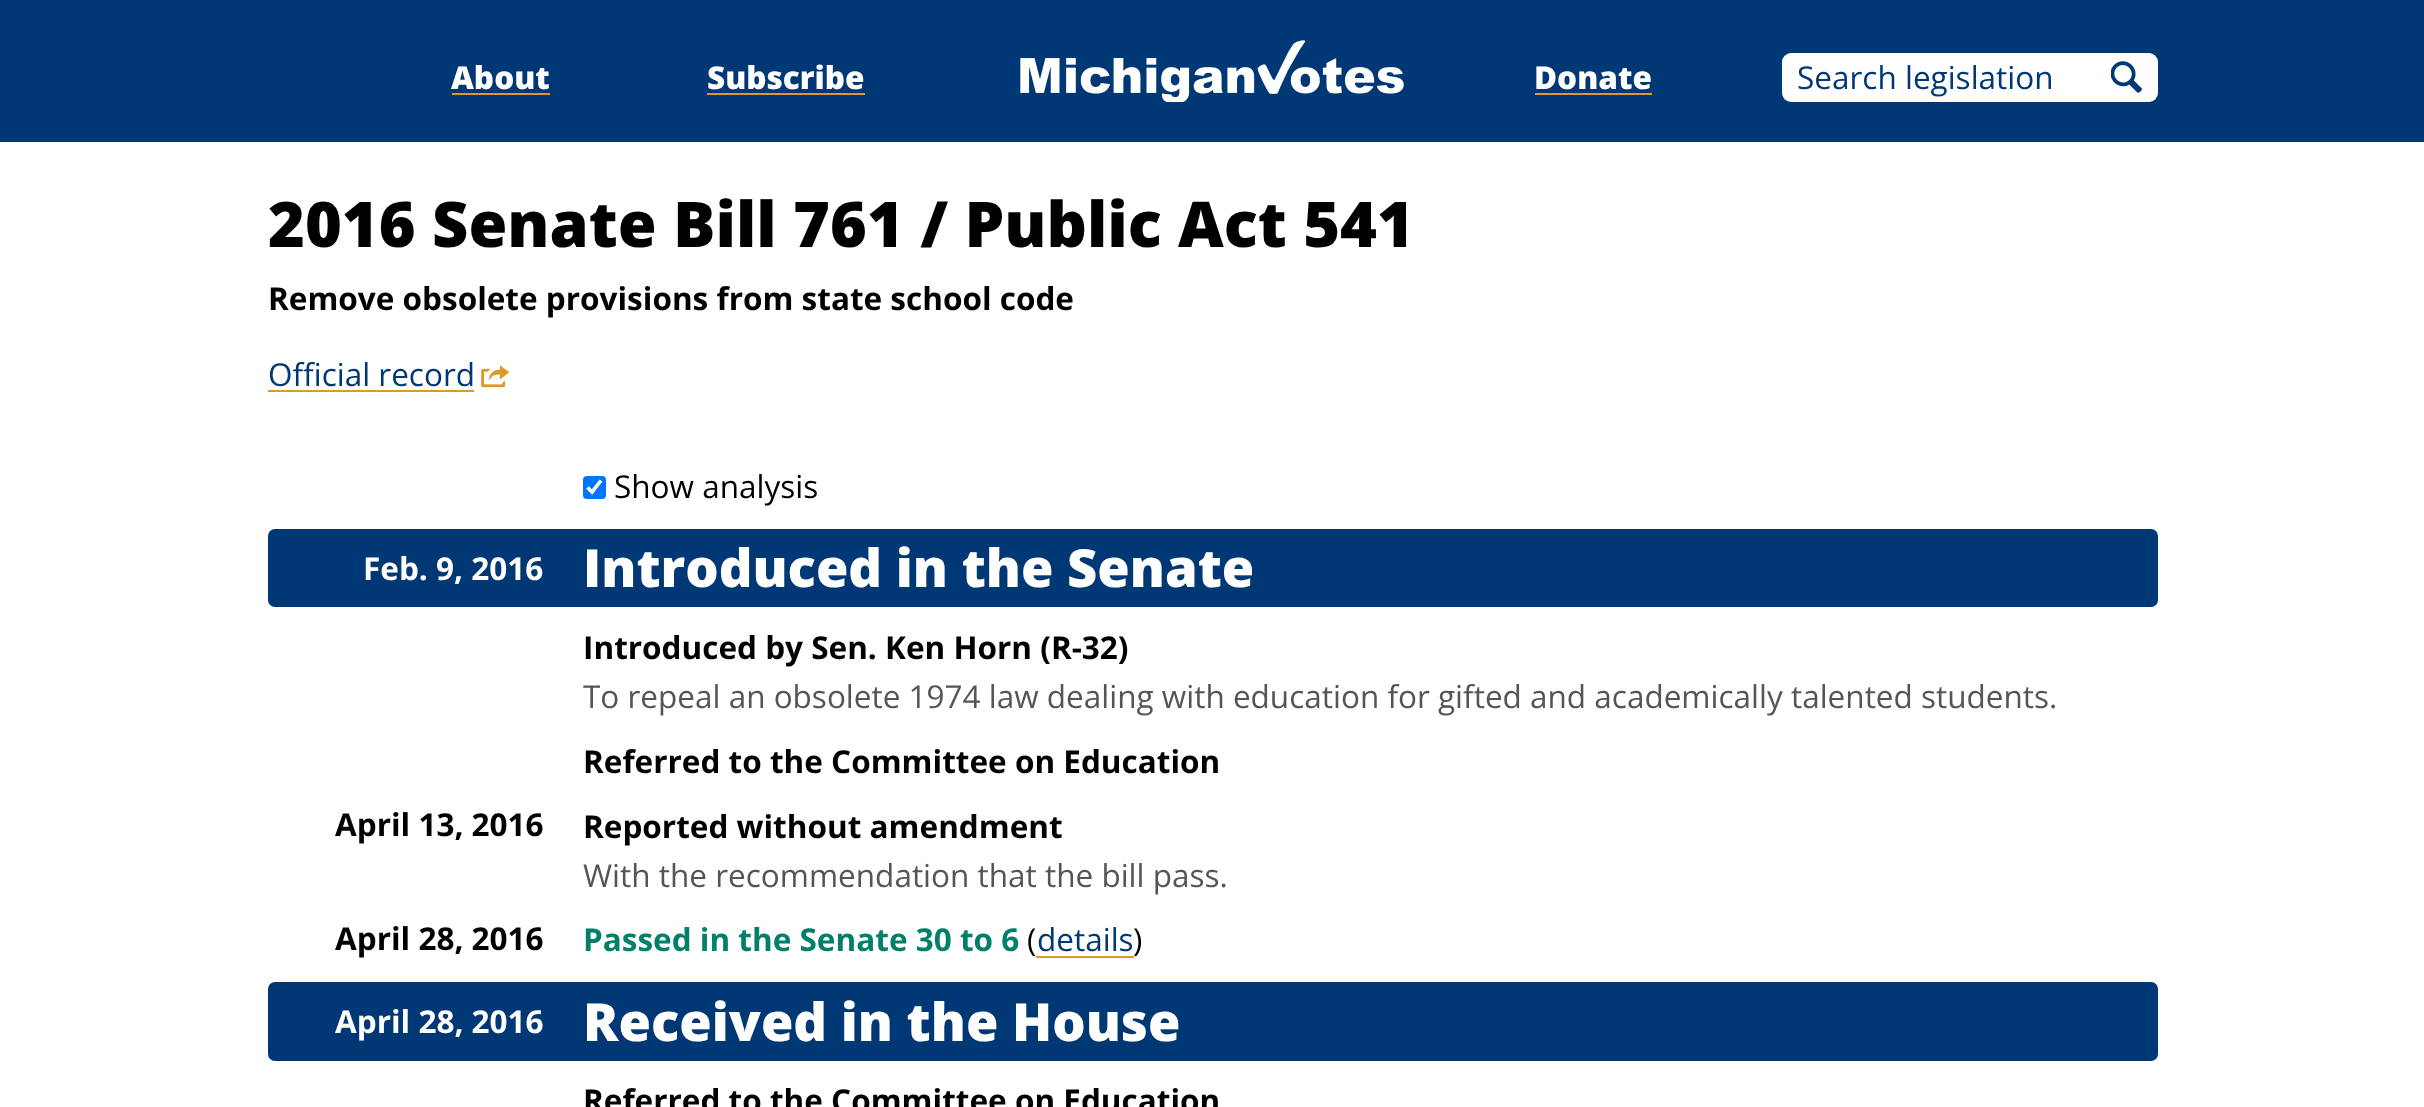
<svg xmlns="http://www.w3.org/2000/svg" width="2424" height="1107">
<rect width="100%" height="100%" fill="#fff"/>
<rect width="2424" height="142" fill="#003875"/>
<image x="1020" y="40" width="384" height="62" href="media/1.png"/>
<text x="451" y="89" style="font-family:Open Sans;font-size:31.5px;font-weight:800;fill:#fff">About</text>
<rect x="452" y="93" width="98" height="2" fill="#db9928"/>
<text x="707" y="89" style="font-family:Open Sans;font-size:31.5px;font-weight:800;fill:#fff">Subscribe</text>
<rect x="707" y="93" width="158" height="2" fill="#db9928"/>
<text x="1534" y="89" style="font-family:Open Sans;font-size:31.5px;font-weight:800;fill:#fff">Donate</text>
<rect x="1535" y="93" width="117" height="2" fill="#db9928"/>
<rect x="1782" y="53" width="376" height="49" rx="9" fill="#fff"/>
<text x="1797" y="89" style="font-family:Open Sans;font-size:31.5px;fill:#003875">Search legislation</text>
<image x="2111" y="61" width="31" height="32" href="media/2.png"/>
<text x="268" y="247" style="font-family:Open Sans;font-size:63px;font-weight:800;fill:#000">2016 Senate Bill 761 / Public Act 541</text>
<text x="268" y="310" style="font-family:Open Sans;font-size:31.5px;font-weight:bold;fill:#000">Remove obsolete provisions from state school code</text>
<text x="268" y="386" style="font-family:Open Sans;font-size:31.5px;fill:#003875">Official record</text>
<rect x="268" y="390" width="206" height="2" fill="#db9928"/>
<image x="481" y="365" width="28" height="23" href="media/3.png"/>
<rect x="583" y="476" width="23" height="23" rx="4" fill="#0075ff"/>
<path d="M587.5 487.5l4.5 4.5l9-11.5" fill="none" stroke="#fff" stroke-width="3.6"/>
<text x="614" y="498" style="font-family:Open Sans;font-size:31.5px;fill:#000">Show analysis</text>
<rect x="268" y="529" width="1890" height="78" rx="7" fill="#003875"/>
<text x="363" y="580" style="font-family:Open Sans;font-size:31.5px;font-weight:bold;fill:#fff">Feb. 9, 2016</text>
<text x="583" y="587" style="font-family:Open Sans;font-size:52.5px;font-weight:800;fill:#fff">Introduced in the Senate</text>
<text x="583" y="659" style="font-family:Open Sans;font-size:31.5px;font-weight:bold;fill:#000">Introduced by Sen. Ken Horn (R-32)</text>
<text x="583" y="708" style="font-family:Open Sans;font-size:31.5px;fill:#555">To repeal an obsolete 1974 law dealing with education for gifted and academically talented students.</text>
<text x="583" y="773" style="font-family:Open Sans;font-size:31.5px;font-weight:bold;fill:#000">Referred to the Committee on Education</text>
<text x="335" y="836" style="font-family:Open Sans;font-size:31.5px;font-weight:bold;fill:#000">April 13, 2016</text>
<text x="583" y="838" style="font-family:Open Sans;font-size:31.5px;font-weight:bold;fill:#000">Reported without amendment</text>
<text x="583" y="887" style="font-family:Open Sans;font-size:31.5px;fill:#555">With the recommendation that the bill pass.</text>
<text x="335" y="950" style="font-family:Open Sans;font-size:31.5px;font-weight:bold;fill:#000">April 28, 2016</text>
<text x="583" y="951" style="font-family:Open Sans;font-size:31.5px;font-weight:bold;fill:#007f69">Passed in the Senate 30 to 6</text>
<text x="1027" y="951" style="font-family:Open Sans;font-size:31.5px;fill:#000">(</text>
<rect x="1036" y="956" width="98" height="2" fill="#db9928"/>
<text x="1037" y="951" style="font-family:Open Sans;font-size:31.5px;fill:#003875">details</text>
<text x="1133" y="951" style="font-family:Open Sans;font-size:31.5px;fill:#000">)</text>
<rect x="268" y="982" width="1890" height="79" rx="7" fill="#003875"/>
<text x="335" y="1033" style="font-family:Open Sans;font-size:31.5px;font-weight:bold;fill:#fff">April 28, 2016</text>
<text x="583" y="1041" style="font-family:Open Sans;font-size:52.5px;font-weight:800;fill:#fff">Received in the House</text>
<text x="583" y="1112" style="font-family:Open Sans;font-size:31.5px;font-weight:bold;fill:#000">Referred to the Committee on Education</text>
</svg>
